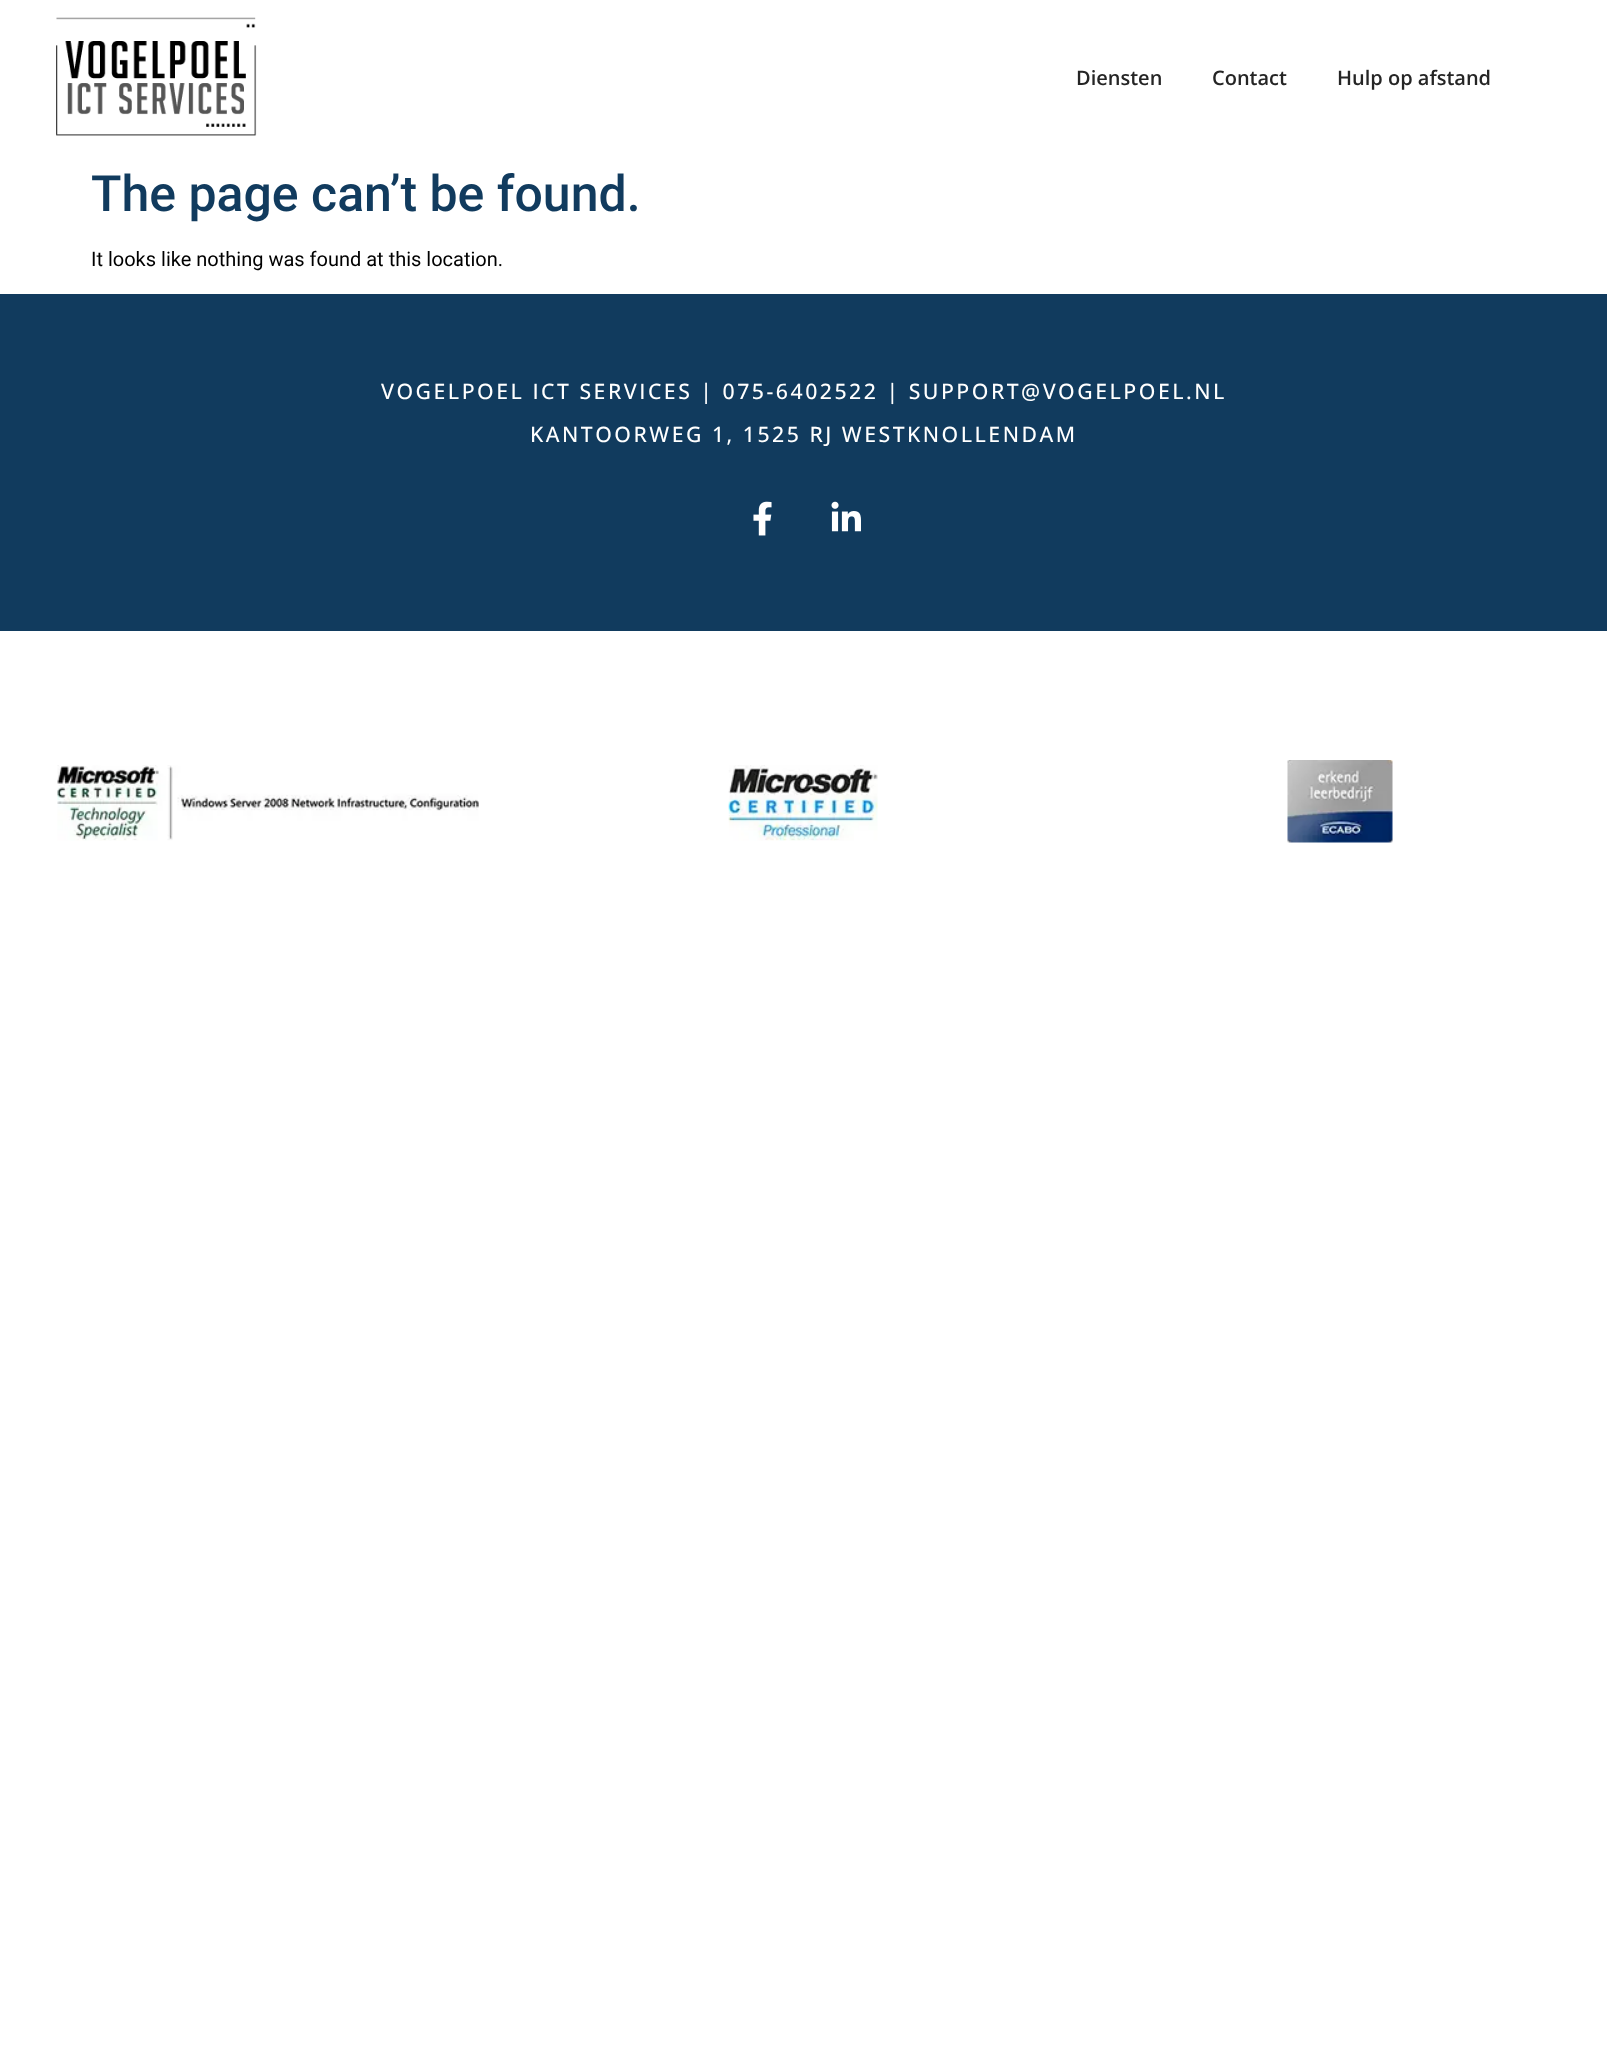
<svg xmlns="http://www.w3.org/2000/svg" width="1607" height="2055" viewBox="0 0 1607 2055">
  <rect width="100%" height="100%" fill="#ffffff"/>
  <image x="56" y="17" width="201" height="119" href="img1.png"/>
  <text x="1076" y="85" font-family="Open Sans" font-size="20" font-weight="600" fill="#252525">Diensten</text>
  <text x="1212" y="85" font-family="Open Sans" font-size="20" font-weight="600" fill="#252525">Contact</text>
  <text x="1337" y="85" font-family="Open Sans" font-size="20" font-weight="600" fill="#252525">Hulp op afstand</text>
  <text x="91" y="211" font-family="Roboto" font-size="50" font-weight="500" fill="#113b5e">The page can’t be found.</text>
  <text x="91" y="266" font-family="Roboto" font-size="20" fill="#000000">It looks like nothing was found at this location.</text>
  <rect x="0" y="294" width="1607" height="337" fill="#113b5e"/>
  <text x="381" y="399" font-family="Open Sans" font-size="21.25" font-weight="500" letter-spacing="2.5" fill="#ffffff">VOGELPOEL ICT SERVICES | 075-6402522 | SUPPORT@VOGELPOEL.NL</text>
  <text x="530" y="442" font-family="Open Sans" font-size="21.25" font-weight="500" letter-spacing="2.5" fill="#ffffff">KANTOORWEG 1, 1525 RJ WESTKNOLLENDAM</text>
  <image x="753" y="501" width="19" height="35" href="img2.png"/>
  <image x="831" y="501" width="30" height="31" href="img3.png"/>
  <image x="57" y="765" width="422" height="76" href="img4.png"/>
  <image x="728" y="765" width="150" height="76" href="img5.png"/>
  <image x="1287" y="760" width="106" height="83" href="img6.png"/>
</svg>
